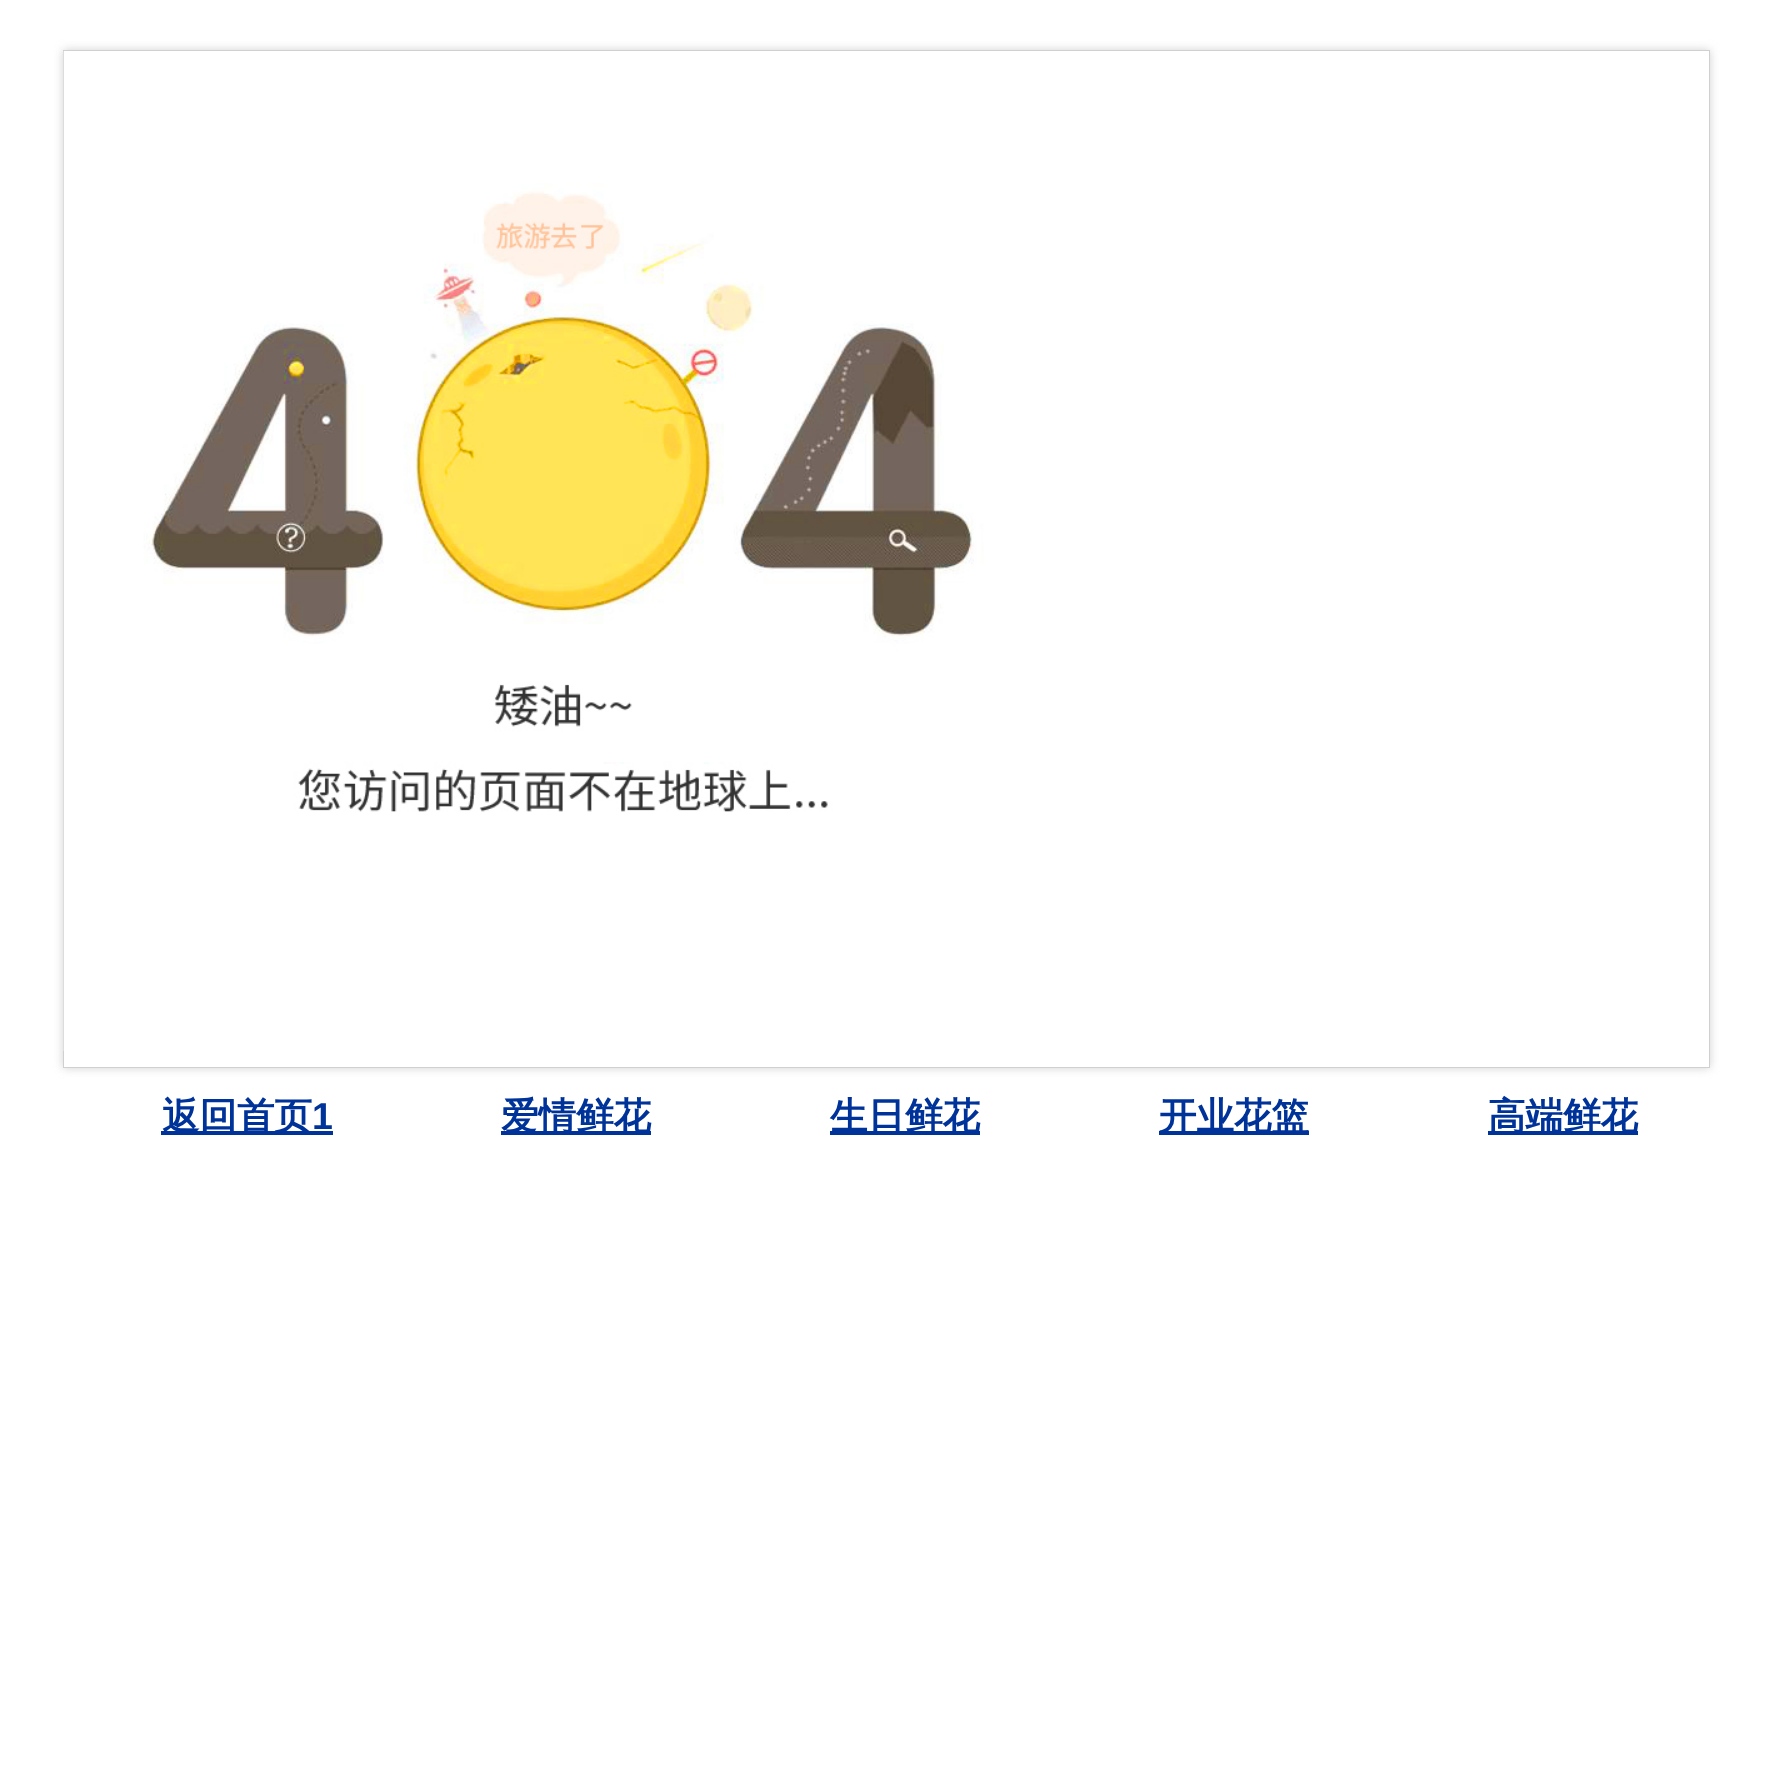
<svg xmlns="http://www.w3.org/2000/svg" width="1772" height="1772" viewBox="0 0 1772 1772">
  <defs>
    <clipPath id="clip1"><path d="M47 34H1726V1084H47ZM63 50H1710V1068H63Z" clip-rule="evenodd"/></clipPath>
    <filter id="blur1" x="-50%" y="-200%" width="200%" height="500%"><feGaussianBlur stdDeviation="5"/></filter>
  </defs>
  <rect width="100%" height="100%" fill="#ffffff"/>
  <g clip-path="url(#clip1)">
    <rect x="63" y="50" width="1647" height="1018" fill="#d0d0d0" filter="url(#blur1)"/>
  </g>
  <rect x="63.5" y="50.5" width="1646" height="1017" fill="none" stroke="#d0d0d0"/>
  <image x="63" y="51" width="921" height="1000" href="img1.png"/>
  <rect x="161" y="1131" width="172" height="4" fill="#003399"/>
  <text x="162" y="1129" font-family="WenQuanYi Zen Hei" font-size="37.5" font-weight="bold" fill="#003399">返回首页</text>
  <text x="312" y="1129" font-family="Liberation Sans" font-size="37.5" font-weight="bold" fill="#003399">1</text>
  <rect x="501" y="1131" width="150" height="4" fill="#003399"/>
  <text x="501" y="1129" font-family="WenQuanYi Zen Hei" font-size="37.5" font-weight="bold" fill="#003399">爱情鲜花</text>
  <rect x="830" y="1131" width="150" height="4" fill="#003399"/>
  <text x="830" y="1129" font-family="WenQuanYi Zen Hei" font-size="37.5" font-weight="bold" fill="#003399">生日鲜花</text>
  <rect x="1159" y="1131" width="150" height="4" fill="#003399"/>
  <text x="1159" y="1129" font-family="WenQuanYi Zen Hei" font-size="37.5" font-weight="bold" fill="#003399">开业花篮</text>
  <rect x="1488" y="1131" width="150" height="4" fill="#003399"/>
  <text x="1488" y="1129" font-family="WenQuanYi Zen Hei" font-size="37.5" font-weight="bold" fill="#003399">高端鲜花</text>
</svg>
